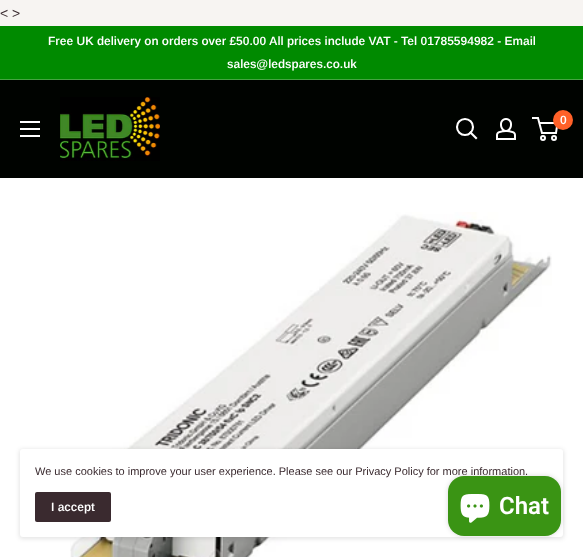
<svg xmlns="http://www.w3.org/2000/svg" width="583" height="557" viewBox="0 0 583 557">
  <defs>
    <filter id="blur1" x="-50%" y="-200%" width="200%" height="500%"><feGaussianBlur stdDeviation="2"/></filter>
    <filter id="blur2" x="-50%" y="-200%" width="200%" height="500%"><feGaussianBlur stdDeviation="2.5"/></filter>
  </defs>
  <rect width="100%" height="100%" fill="#f7f4f2"/>
  <text x="0" y="18" font-family="Arimo" font-size="14" fill="#3a2a2f">&lt; &gt;</text>
  <rect x="0" y="26" width="583" height="53" fill="#008a00"/>
  <rect x="0" y="79" width="583" height="1" fill="#46a442"/>
  <text x="48" y="45" font-family="Arimo" font-size="12" font-weight="600" fill="#ffffff">Free UK delivery on orders over £50.00 All prices include VAT - Tel 01785594982 - Email</text>
  <text x="227" y="68" font-family="Arimo" font-size="12" font-weight="600" fill="#ffffff">sales@ledspares.co.uk</text>
  <rect x="0" y="80" width="583" height="98" fill="#000300"/>
  <image x="60" y="97" width="100" height="64" href="img1.png"/>
  <path d="M476 138L470.5 132.5" fill="none" stroke="#ffffff" stroke-width="2.1" stroke-linecap="square"/>
  <circle cx="465" cy="127" r="8" fill="none" stroke="#ffffff" stroke-width="2.1"/>
  <image x="496" y="118" width="20" height="22" href="img2.png"/>
  <circle cx="543" cy="138" r="2" fill="none" stroke="#ffffff" stroke-width="2"/>
  <circle cx="554" cy="138" r="2" fill="none" stroke="#ffffff" stroke-width="2"/>
  <path d="M539.5 123H557.5L556 133H542L538 118H532" fill="none" stroke="#ffffff" stroke-width="2"/>
  <circle cx="563" cy="120" r="10" fill="#ff6128"/>
  <text x="560" y="124" font-family="Arimo" font-size="12" font-weight="600" fill="#ffffff">0</text>
  <image x="20" y="121" width="20" height="16" href="img3.png"/>
  <rect x="0" y="178" width="583" height="379" fill="#ffffff"/>
  <image x="70" y="212" width="482" height="345" href="img4.png"/>
  <rect x="19" y="449" width="545" height="90" rx="4" fill="#000000" fill-opacity="0.1" filter="url(#blur1)"/>
  <rect x="20" y="449" width="543" height="88" rx="3" fill="#ffffff"/>
  <text x="35" y="475" font-family="Arimo" font-size="11" fill="#3a2a2f">We use cookies to improve your user experience. Please see our Privacy Policy for more information.</text>
  <rect x="35" y="492" width="76" height="30" rx="2" fill="#3a2a2f"/>
  <text x="51" y="511" font-family="Arimo" font-size="12" font-weight="600" fill="#ffffff">I accept</text>
  <rect x="448" y="476" width="113" height="60" rx="16" fill="#000000" fill-opacity="0.15" filter="url(#blur2)"/>
  <rect x="448" y="476" width="113" height="60" rx="16" fill="#3a9414"/>
  <image x="460" y="494" width="30" height="29" href="img5.png"/>
  <text x="499" y="514" font-family="Roboto" font-size="24" font-weight="600" fill="#ffffff">Chat</text>
</svg>
